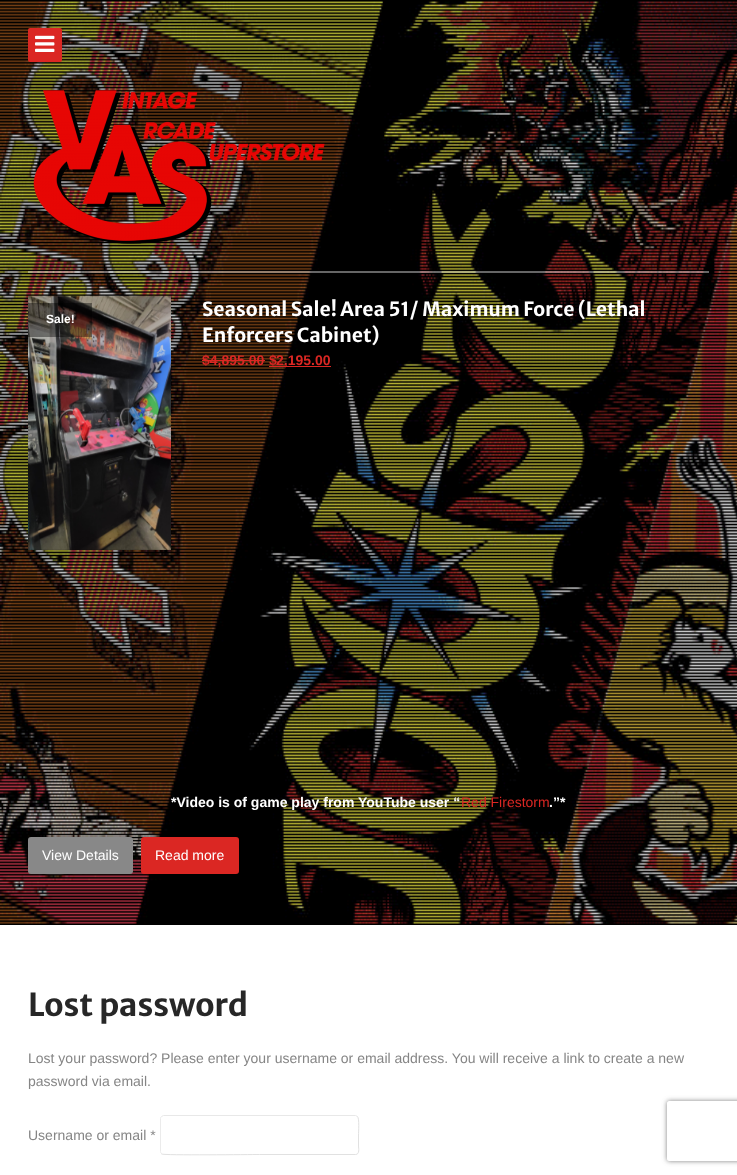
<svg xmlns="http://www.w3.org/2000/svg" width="737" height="1175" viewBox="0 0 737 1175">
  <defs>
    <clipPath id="clip1"><path d="M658 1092H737V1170H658ZM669 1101H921C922 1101 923 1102 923 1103V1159C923 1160 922 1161 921 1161H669C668 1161 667 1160 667 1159V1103C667 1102 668 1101 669 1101Z" clip-rule="evenodd"/></clipPath>
    <filter id="blur1" x="-50%" y="-200%" width="200%" height="500%"><feGaussianBlur stdDeviation="2.5"/></filter>
  </defs>
  <rect width="100%" height="100%" fill="#ffffff"/>
  <image x="0" y="0" width="737" height="925" href="img1.png"/>
  <rect x="28" y="28" width="34" height="34" rx="2" fill="#db2723"/>
  <image x="35" y="35" width="20" height="17" href="img2.png"/>
  <image x="33" y="90" width="292" height="154" href="img3.png"/>
  <rect x="28" y="271" width="681" height="2" fill="#ffffff" fill-opacity="0.4"/>
  <text x="202" y="316" font-family="Merriweather Sans" font-size="19.4" font-weight="bold" fill="#ffffff">Seasonal Sale! Area 51/ Maximum Force (Lethal</text>
  <text x="202" y="342" font-family="Merriweather Sans" font-size="19.4" font-weight="bold" fill="#ffffff">Enforcers Cabinet)</text>
  <text x="202" y="365" font-family="Liberation Sans" font-size="14" font-weight="bold" fill="#db2723">$4,895.00</text>
  <rect x="202" y="360" width="63" height="1" fill="#db2723"/>
  <rect x="269" y="366" width="7" height="1" fill="#db2723"/>
  <text x="269" y="365" font-family="Liberation Sans" font-size="14" font-weight="bold" fill="#db2723">$</text>
  <rect x="276" y="366" width="55" height="1" fill="#db2723"/>
  <text x="276" y="365" font-family="Liberation Sans" font-size="14" font-weight="bold" fill="#db2723">2,195.00</text>
  <text x="171" y="807" font-family="Liberation Sans" font-size="14" font-weight="bold" fill="#ffffff">*Video is of game play from YouTube user “</text>
  <text x="461" y="807" font-family="Liberation Sans" font-size="14" fill="#db2723">Red Firestorm</text>
  <text x="549" y="807" font-family="Liberation Sans" font-size="14" font-weight="bold" fill="#ffffff">.”*</text>
  <rect x="28" y="837" width="105" height="37" rx="3" fill="#888888"/>
  <text x="42" y="860" font-family="Liberation Sans" font-size="14" fill="#ffffff">View Details</text>
  <rect x="141" y="837" width="98" height="37" rx="3" fill="#db2723"/>
  <text x="155" y="860" font-family="Liberation Sans" font-size="14" fill="#ffffff">Read more</text>
  <image x="28" y="295" width="143" height="255" href="img4.png"/>
  <rect x="28" y="303" width="64" height="34" fill="#000000" fill-opacity="0.4"/>
  <text x="46" y="323" font-family="Liberation Sans" font-size="12" font-weight="bold" fill="#ffffff">Sale!</text>
  <text x="28" y="1016" font-family="Merriweather Sans" font-size="31.5" font-weight="bold" fill="#272727">Lost password</text>
  <text x="28" y="1063" font-family="Liberation Sans" font-size="14" fill="#858585">Lost your password? Please enter your username or email address. You will receive a link to create a new</text>
  <text x="28" y="1086" font-family="Liberation Sans" font-size="14" fill="#858585">password via email.</text>
  <text x="28" y="1140" font-family="Liberation Sans" font-size="14" fill="#858585">Username or email *</text>
  <path d="M161.5 1116.5L163.5 1115.5H355.5L357.5 1116.5" fill="none" stroke="#e8e8e8"/>
  <path d="M357.5 1116.5C359.5 1118.5 358.5 1132 358.5 1135V1146C358.5 1148 360 1154.5 355.5 1154.5H259.5C250.5 1154.5 164 1155.5 161.5 1154V1153.5" fill="none" stroke="#e1e1e1"/>
  <path d="M161.5 1153.5C161 1153 160.5 1152.5 160.5 1151.5V1118.5C160.5 1117.5 161 1117 161.5 1116.5" fill="none" stroke="#ebebeb"/>
  <g clip-path="url(#clip1)">
    <rect x="667" y="1101" width="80" height="60" rx="2" fill="#808080" filter="url(#blur1)"/>
  </g>
</svg>
